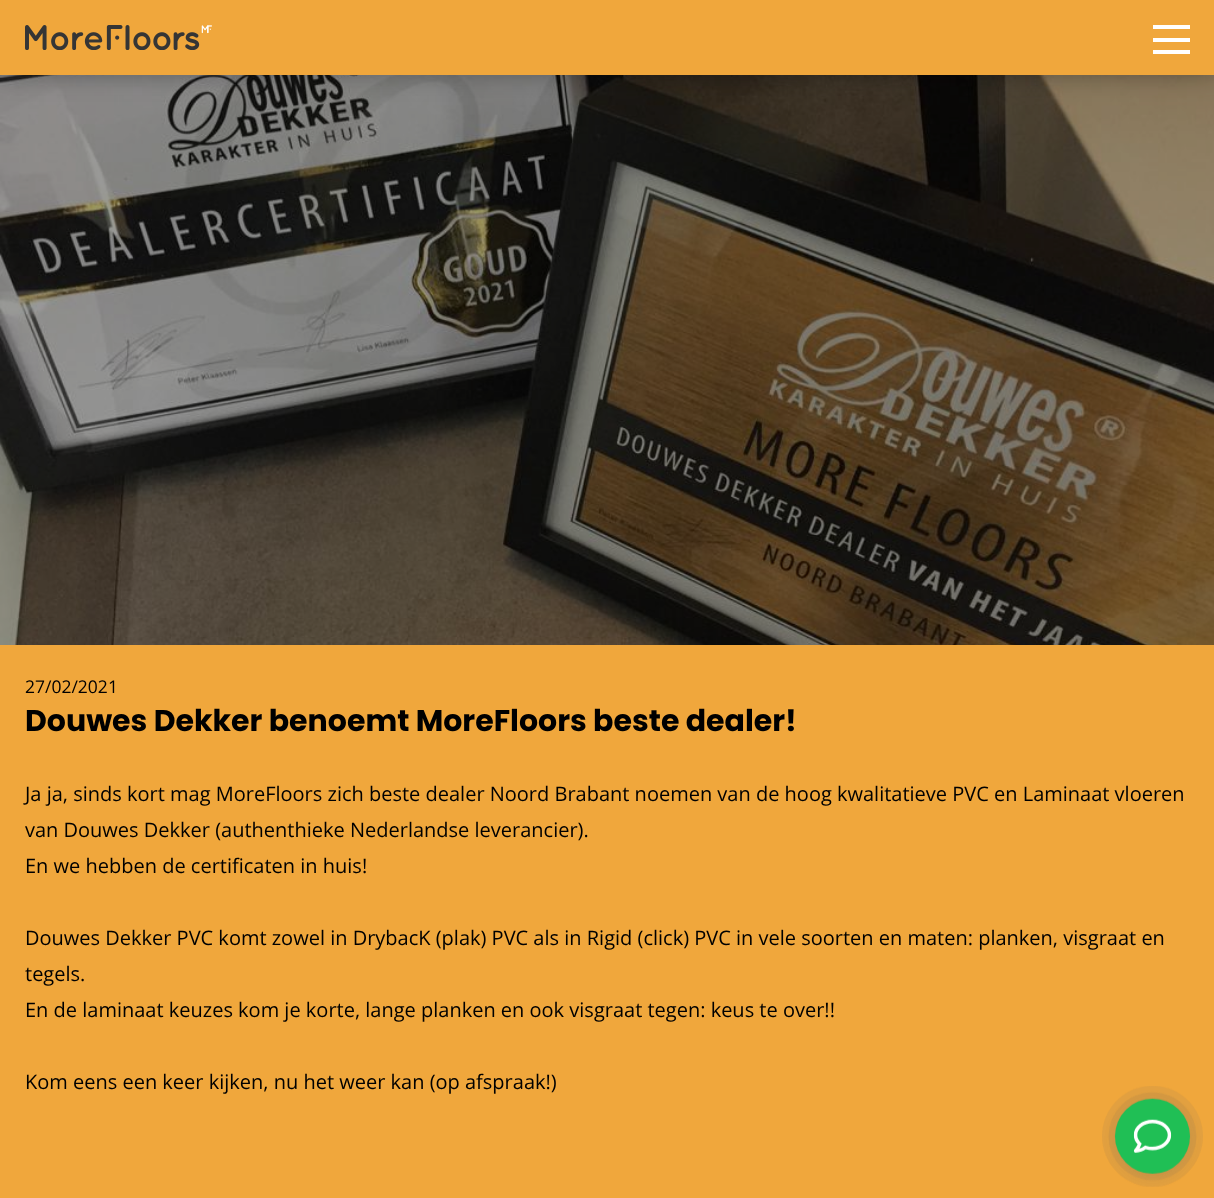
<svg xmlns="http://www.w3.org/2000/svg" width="1214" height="1198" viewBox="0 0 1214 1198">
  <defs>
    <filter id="blur1" x="-50%" y="-200%" width="200%" height="500%"><feGaussianBlur stdDeviation="12.5"/></filter>
  </defs>
  <rect width="100%" height="100%" fill="#f0a73c"/>
  <image x="0" y="75" width="1214" height="570" href="img2.png"/>
  <rect x="0" y="0" width="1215" height="75" fill="#000000" fill-opacity="0.3" filter="url(#blur1)"/>
  <rect x="0" y="0" width="1214" height="75" fill="#f0a73c"/>
  <image x="25" y="25" width="187" height="25" href="img1.png"/>
  <rect x="1153" y="38" width="37" height="4" fill="#ffffff"/>
  <rect x="1153" y="25" width="37" height="4" fill="#ffffff"/>
  <rect x="1153" y="50" width="37" height="4" fill="#ffffff"/>
  <text x="25" y="693" font-family="Open Sans" font-size="17.5" fill="#000000">27/02/2021</text>
  <text x="25" y="731" font-family="Poppins" font-size="30" font-weight="bold" fill="#000000">Douwes Dekker benoemt MoreFloors beste dealer!</text>
  <text x="25" y="801" font-family="Open Sans" font-size="20" fill="#000000">Ja ja, sinds kort mag MoreFloors zich beste dealer Noord Brabant noemen van de hoog kwalitatieve PVC en Laminaat vloeren</text>
  <text x="25" y="837" font-family="Open Sans" font-size="20" fill="#000000">van Douwes Dekker (authenthieke Nederlandse leverancier).</text>
  <text x="25" y="873" font-family="Open Sans" font-size="20" fill="#000000">En we hebben de certificaten in huis!</text>
  <text x="25" y="945" font-family="Open Sans" font-size="20" fill="#000000">Douwes Dekker PVC komt zowel in DrybacK (plak) PVC als in Rigid (click) PVC in vele soorten en maten: planken, visgraat en</text>
  <text x="25" y="981" font-family="Open Sans" font-size="20" fill="#000000">tegels.</text>
  <text x="25" y="1017" font-family="Open Sans" font-size="20" fill="#000000">En de laminaat keuzes kom je korte, lange planken en ook visgraat tegen: keus te over!!</text>
  <text x="25" y="1089" font-family="Open Sans" font-size="20" fill="#000000">Kom eens een keer kijken, nu het weer kan (op afspraak!)</text>
  <image x="1102" y="1086" width="101" height="101" href="img3.png"/>
</svg>
